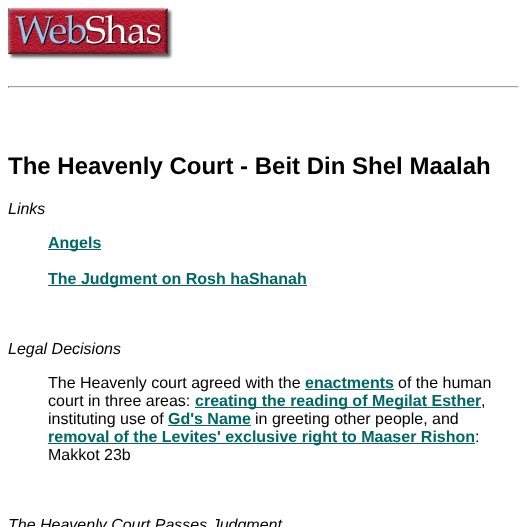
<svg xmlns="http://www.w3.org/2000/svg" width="527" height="527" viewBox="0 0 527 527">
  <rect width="100%" height="100%" fill="#ffffff"/>
  <image x="8" y="8" width="165" height="52" href="img1.png"/>
  <rect x="8" y="86" width="511" height="1" fill="#9f9f9f"/>
  <rect x="518" y="86" width="1" height="2" fill="#eeeeee"/>
  <rect x="8" y="87" width="511" height="1" fill="#eeeeee"/>
  <rect x="8" y="86" width="1" height="2" fill="#9f9f9f"/>
  <text x="8" y="174" font-family="Liberation Sans" font-size="24" font-weight="bold" fill="#000000">The Heavenly Court - Beit Din Shel Maalah</text>
  <text x="8" y="214" font-family="Liberation Sans" font-size="16" font-style="italic" fill="#000000">Links</text>
  <rect x="48" y="249" width="53" height="1" fill="#006666"/>
  <text x="48" y="248" font-family="Liberation Sans" font-size="16" font-weight="bold" fill="#006666">Angels</text>
  <rect x="48" y="285" width="259" height="1" fill="#006666"/>
  <text x="48" y="284" font-family="Liberation Sans" font-size="16" font-weight="bold" fill="#006666">The Judgment on Rosh haShanah</text>
  <text x="8" y="354" font-family="Liberation Sans" font-size="16" font-style="italic" fill="#000000">Legal Decisions</text>
  <text x="48" y="388" font-family="Liberation Sans" font-size="16" fill="#000000">The Heavenly court agreed with the</text>
  <text x="305" y="388" font-family="Liberation Sans" font-size="16" font-weight="bold" fill="#006666">enactments</text>
  <rect x="305" y="389" width="89" height="1" fill="#006666"/>
  <text x="398" y="388" font-family="Liberation Sans" font-size="16" fill="#000000">of the human</text>
  <text x="48" y="406" font-family="Liberation Sans" font-size="16" fill="#000000">court in three areas:</text>
  <rect x="195" y="407" width="286" height="1" fill="#006666"/>
  <text x="195" y="406" font-family="Liberation Sans" font-size="16" font-weight="bold" fill="#006666">creating the reading of Megilat Esther</text>
  <text x="481" y="406" font-family="Liberation Sans" font-size="16" fill="#000000">,</text>
  <text x="48" y="424" font-family="Liberation Sans" font-size="16" fill="#000000">instituting use of</text>
  <text x="168" y="424" font-family="Liberation Sans" font-size="16" font-weight="bold" fill="#006666">Gd's Name</text>
  <rect x="168" y="425" width="83" height="1" fill="#006666"/>
  <text x="255" y="424" font-family="Liberation Sans" font-size="16" fill="#000000">in greeting other people, and</text>
  <rect x="48" y="443" width="427" height="1" fill="#006666"/>
  <text x="48" y="442" font-family="Liberation Sans" font-size="16" font-weight="bold" fill="#006666">removal of the Levites' exclusive right to Maaser Rishon</text>
  <text x="475" y="442" font-family="Liberation Sans" font-size="16" fill="#000000">:</text>
  <text x="48" y="460" font-family="Liberation Sans" font-size="16" fill="#000000">Makkot 23b</text>
  <text x="8" y="530" font-family="Liberation Sans" font-size="16" font-style="italic" fill="#000000">The Heavenly Court Passes Judgment</text>
</svg>
